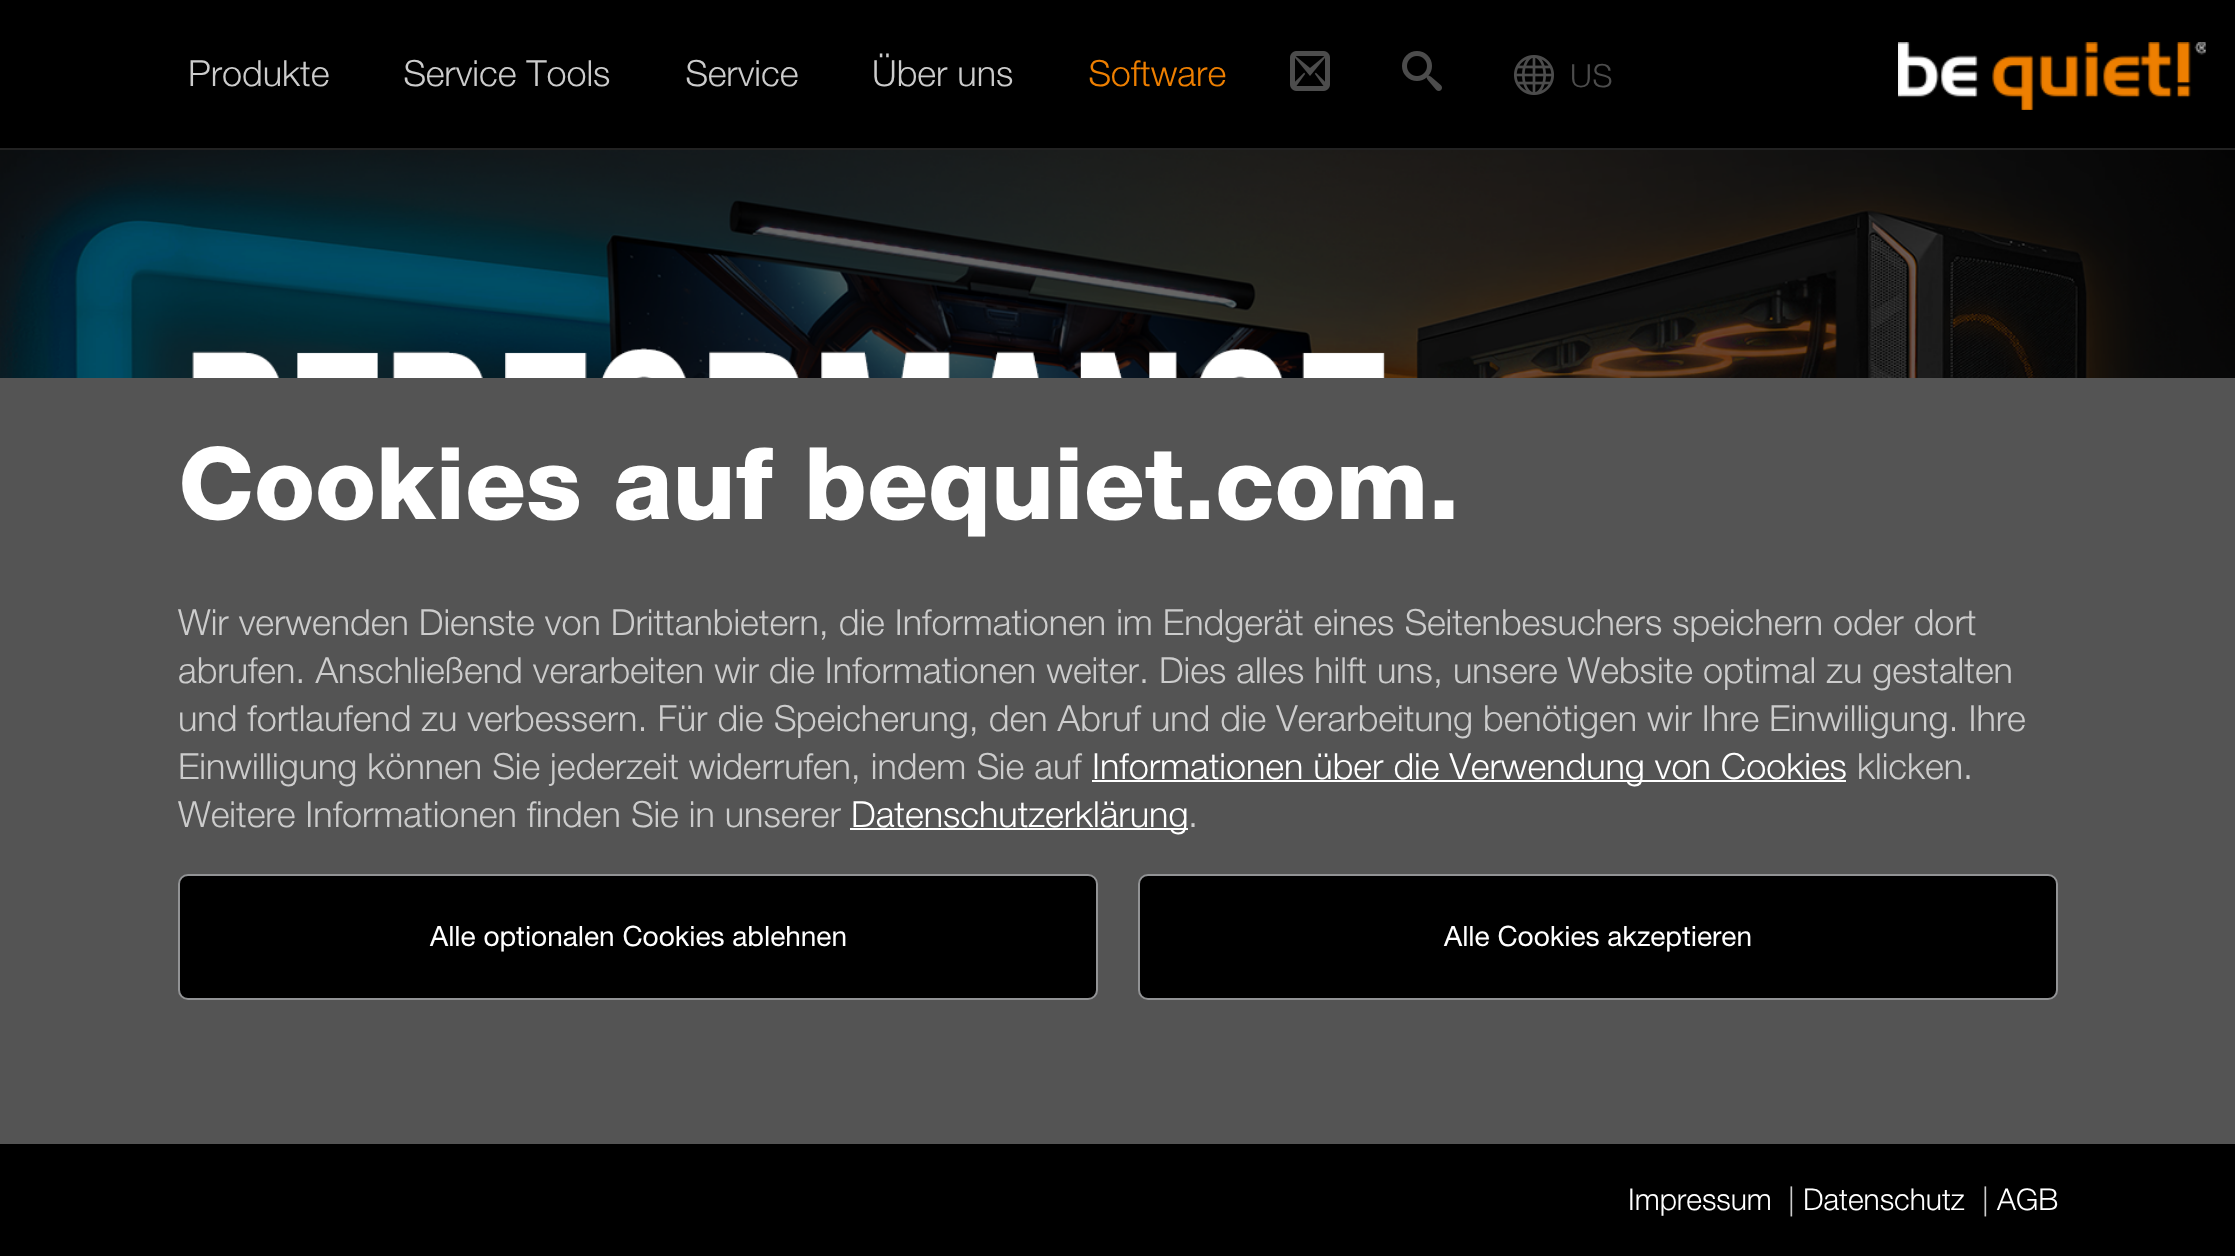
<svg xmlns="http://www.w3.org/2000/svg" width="2235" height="1256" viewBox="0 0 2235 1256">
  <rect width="100%" height="100%" fill="#000000"/>
  <rect x="0" y="148" width="2235" height="2" fill="#222222"/>
  <image x="1898" y="42" width="308" height="68" href="img1.png"/>
  <text x="188" y="86" font-family="'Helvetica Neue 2'" font-size="36" fill="#cccccc">Produkte</text>
  <text x="403" y="86" font-family="'Helvetica Neue 2'" font-size="36" fill="#cccccc">Service Tools</text>
  <text x="685" y="86" font-family="'Helvetica Neue 2'" font-size="36" fill="#cccccc">Service</text>
  <text x="872" y="86" font-family="'Helvetica Neue 2'" font-size="36" fill="#cccccc">Über uns</text>
  <text x="1088" y="86" font-family="'Helvetica Neue 2'" font-size="36" fill="#ee7f00">Software</text>
  <image x="1290" y="51" width="40" height="40" href="img2.png"/>
  <image x="1402" y="51" width="40" height="40" href="img3.png"/>
  <image x="1514" y="55" width="40" height="40" href="img4.png"/>
  <text x="1570" y="87" font-family="'Helvetica Neue 2'" font-size="32" fill="#4c4c4c">US</text>
  <image x="0" y="150" width="2235" height="228" href="img5.png"/>
  <rect x="0" y="378" width="2235" height="766" fill="#545454"/>
  <text x="178" y="519" font-family="Helvetica Neue" font-size="100" fill="#ffffff">Cookies auf bequiet.com.</text>
  <text x="178" y="635" font-family="'Helvetica Neue 2'" font-size="36" fill="#cccccc">Wir verwenden Dienste von Drittanbietern, die Informationen im Endgerät eines Seitenbesuchers speichern oder dort</text>
  <text x="178" y="683" font-family="'Helvetica Neue 2'" font-size="36" fill="#cccccc">abrufen. Anschließend verarbeiten wir die Informationen weiter. Dies alles hilft uns, unsere Website optimal zu gestalten</text>
  <text x="178" y="731" font-family="'Helvetica Neue 2'" font-size="36" fill="#cccccc">und fortlaufend zu verbessern. Für die Speicherung, den Abruf und die Verarbeitung benötigen wir Ihre Einwilligung. Ihre</text>
  <text x="178" y="779" font-family="'Helvetica Neue 2'" font-size="36" fill="#cccccc">Einwilligung können Sie jederzeit widerrufen, indem Sie auf</text>
  <rect x="1092" y="780" width="754" height="2" fill="#ffffff"/>
  <text x="1092" y="779" font-family="'Helvetica Neue 2'" font-size="36" fill="#ffffff">Informationen über die Verwendung von Cookies</text>
  <text x="1857" y="779" font-family="'Helvetica Neue 2'" font-size="36" fill="#cccccc">klicken.</text>
  <text x="178" y="827" font-family="'Helvetica Neue 2'" font-size="36" fill="#cccccc">Weitere Informationen finden Sie in unserer</text>
  <rect x="850" y="828" width="338" height="2" fill="#ffffff"/>
  <text x="851" y="827" font-family="'Helvetica Neue 2'" font-size="36" fill="#ffffff">Datenschutzerklärung</text>
  <text x="1188" y="827" font-family="'Helvetica Neue 2'" font-size="36" fill="#cccccc">.</text>
  <rect x="179" y="875" width="918" height="124" rx="9" fill="#000000" stroke="#929395" stroke-width="2"/>
  <text x="430" y="946" font-family="'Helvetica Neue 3'" font-size="28" fill="#ffffff">Alle optionalen Cookies ablehnen</text>
  <rect x="1139" y="875" width="918" height="124" rx="9" fill="#000000" stroke="#929395" stroke-width="2"/>
  <text x="1444" y="946" font-family="'Helvetica Neue 3'" font-size="28" fill="#ffffff">Alle Cookies akzeptieren</text>
  <text x="1628" y="1210" font-family="'Helvetica Neue 2'" font-size="30" fill="#ffffff">Impressum</text>
  <text x="1788" y="1210" font-family="'Helvetica Neue 2'" font-size="30" fill="#cccccc">|</text>
  <text x="1803" y="1210" font-family="'Helvetica Neue 2'" font-size="30" fill="#ffffff">Datenschutz</text>
  <text x="1982" y="1210" font-family="'Helvetica Neue 2'" font-size="30" fill="#cccccc">|</text>
  <text x="1997" y="1210" font-family="'Helvetica Neue 2'" font-size="30" fill="#ffffff">AGB</text>
</svg>
